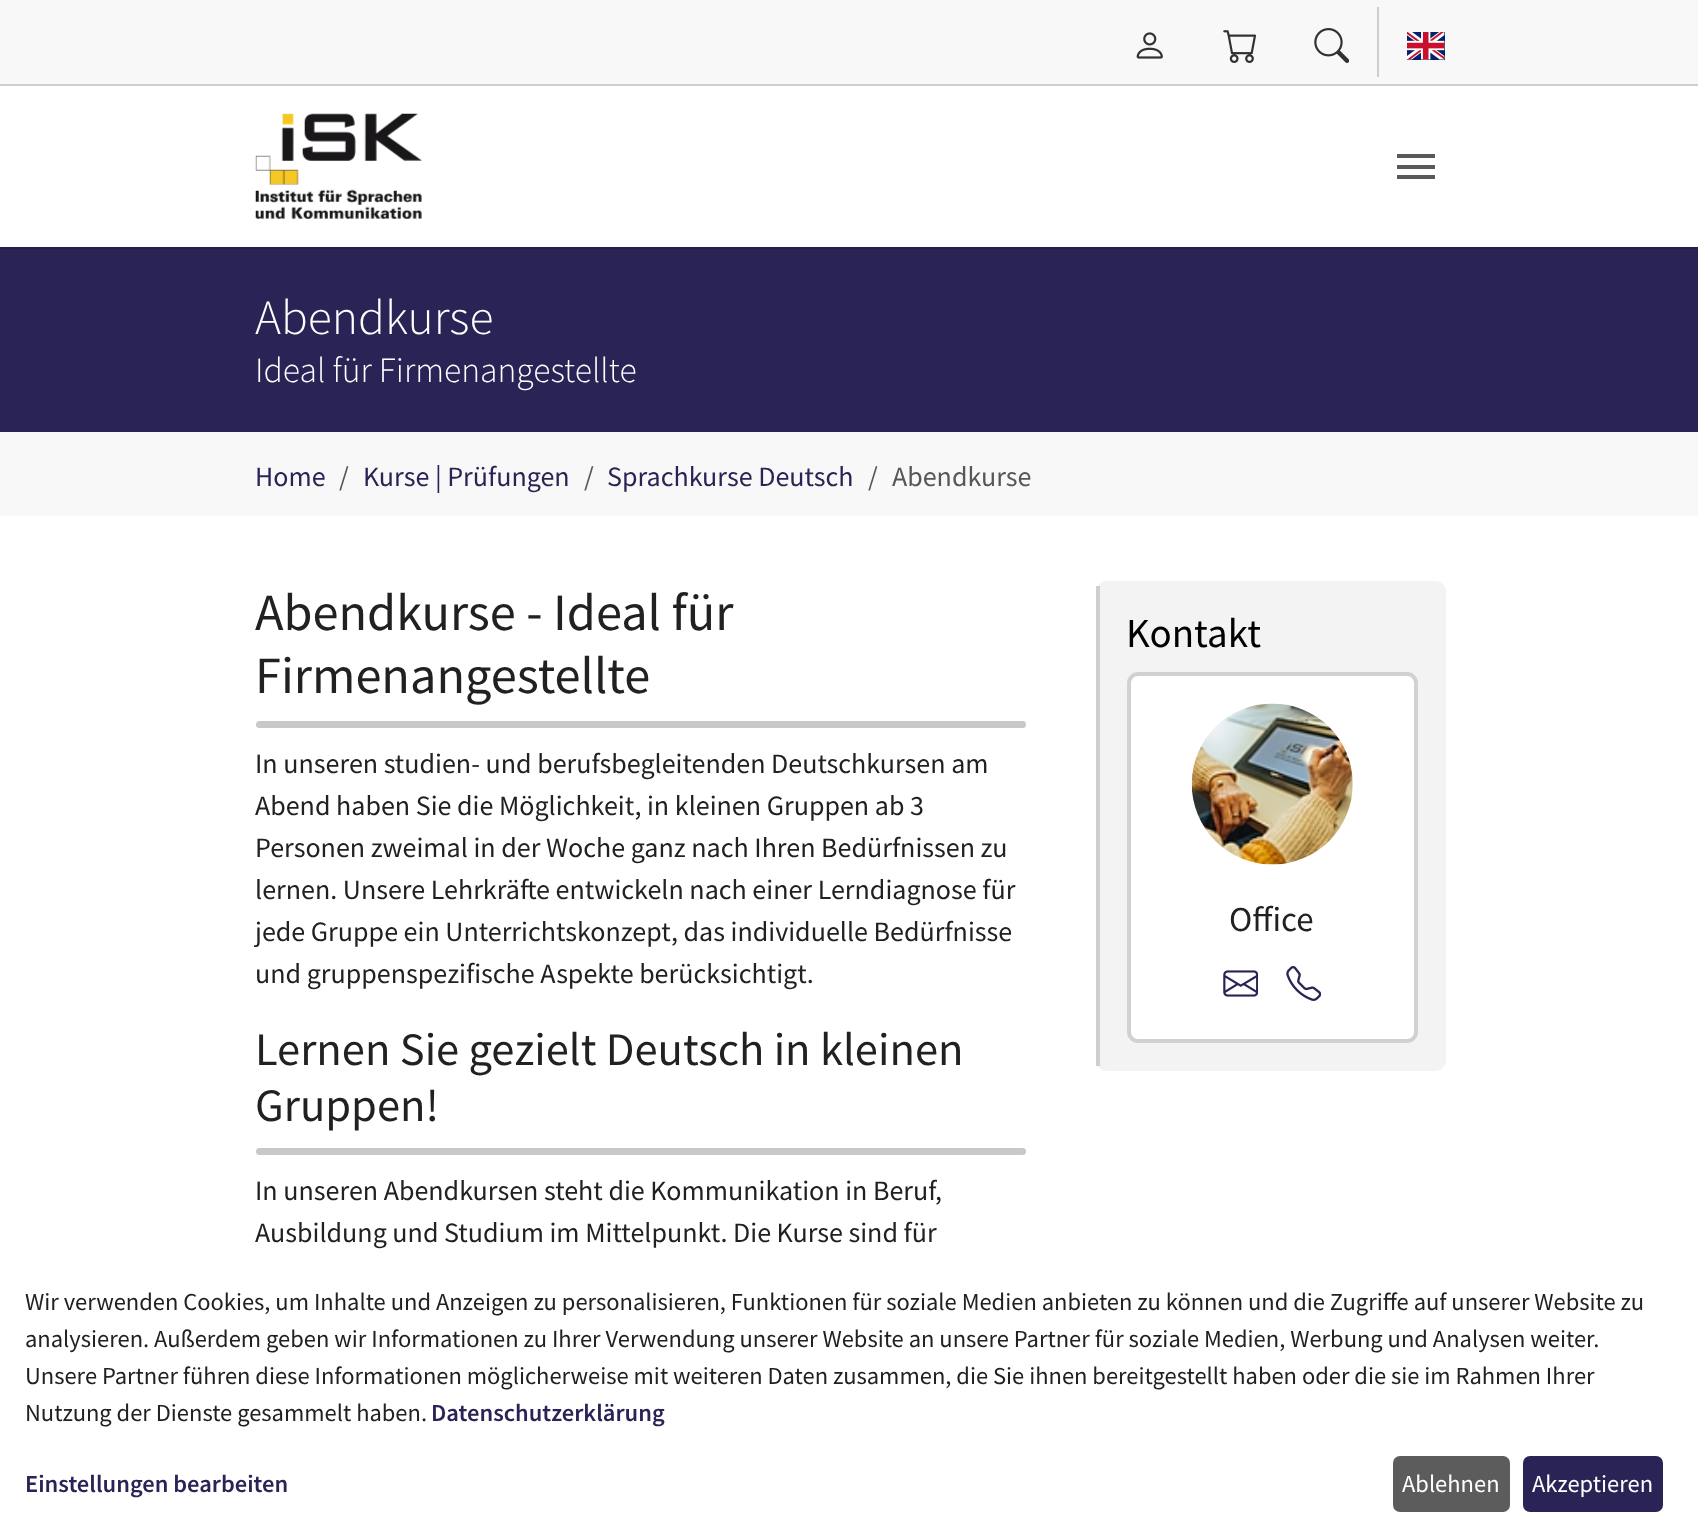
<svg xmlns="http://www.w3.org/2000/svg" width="1698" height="1536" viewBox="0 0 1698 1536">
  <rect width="100%" height="100%" fill="#ffffff"/>
  <rect x="0" y="0" width="1698" height="84" fill="#f8f8f8"/>
  <rect x="0" y="84" width="1698" height="2" fill="#cecece"/>
  <image x="1136" y="32" width="27" height="27" href="img1.png"/>
  <image x="1223" y="30" width="33" height="33" href="img2.png"/>
  <image x="1314" y="28" width="35" height="35" href="img3.png"/>
  <rect x="1377" y="7" width="2" height="70" fill="#cecece"/>
  <image x="1407" y="32" width="38" height="28" href="img4.png"/>
  <rect x="0" y="247" width="1698" height="2" fill="#231f48"/>
  <image x="255" y="113" width="167" height="106" href="img5.png"/>
  <rect x="1397" y="165" width="38" height="4" fill="#595959"/>
  <rect x="1397" y="154" width="38" height="4" fill="#595959"/>
  <rect x="1397" y="175" width="38" height="4" fill="#595959"/>
  <rect x="0" y="249" width="1698" height="183" fill="#292455"/>
  <text x="255" y="334" font-family="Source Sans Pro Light" font-size="49.5" font-weight="300" fill="#ffffff">Abendkurse</text>
  <text x="255" y="382" font-family="Source Sans Pro Light" font-size="35.5" font-weight="300" fill="#ffffff">Ideal für Firmenangestellte</text>
  <rect x="0" y="432" width="1698" height="84" fill="#f8f8f8"/>
  <text x="255" y="486" font-family="Source Sans Pro" font-size="28" fill="#292455">Home</text>
  <text x="339" y="486" font-family="Source Sans Pro" font-size="28" fill="#575757">/</text>
  <text x="363" y="486" font-family="Source Sans Pro" font-size="28" fill="#292455">Kurse | Prüfungen</text>
  <text x="584" y="486" font-family="Source Sans Pro" font-size="28" fill="#575757">/</text>
  <text x="607" y="486" font-family="Source Sans Pro" font-size="28" fill="#292455">Sprachkurse Deutsch</text>
  <text x="868" y="486" font-family="Source Sans Pro" font-size="28" fill="#575757">/</text>
  <text x="892" y="486" font-family="Source Sans Pro" font-size="28" fill="#575757">Abendkurse</text>
  <text x="255" y="630" font-family="Source Sans Pro" font-size="52.4" fill="#212121">Abendkurse - Ideal für</text>
  <text x="255" y="693" font-family="Source Sans Pro" font-size="52.4" fill="#212121">Firmenangestellte</text>
  <rect x="256" y="721" width="770" height="7" rx="3.5" fill="#c8c8c8"/>
  <text x="255" y="773" font-family="Source Sans Pro" font-size="28" fill="#212121">In unseren studien- und berufsbegleitenden Deutschkursen am</text>
  <text x="255" y="815" font-family="Source Sans Pro" font-size="28" fill="#212121">Abend haben Sie die Möglichkeit, in kleinen Gruppen ab 3</text>
  <text x="255" y="857" font-family="Source Sans Pro" font-size="28" fill="#212121">Personen zweimal in der Woche ganz nach Ihren Bedürfnissen zu</text>
  <text x="255" y="899" font-family="Source Sans Pro" font-size="28" fill="#212121">lernen. Unsere Lehrkräfte entwickeln nach einer Lerndiagnose für</text>
  <text x="255" y="941" font-family="Source Sans Pro" font-size="28" fill="#212121">jede Gruppe ein Unterrichtskonzept, das individuelle Bedürfnisse</text>
  <text x="255" y="983" font-family="Source Sans Pro" font-size="28" fill="#212121">und gruppenspezifische Aspekte berücksichtigt.</text>
  <text x="255" y="1065" font-family="Source Sans Pro" font-size="46.6" fill="#212121">Lernen Sie gezielt Deutsch in kleinen</text>
  <text x="255" y="1121" font-family="Source Sans Pro" font-size="46.6" fill="#212121">Gruppen!</text>
  <rect x="256" y="1148" width="770" height="7" rx="3.5" fill="#c8c8c8"/>
  <text x="255" y="1200" font-family="Source Sans Pro" font-size="28" fill="#212121">In unseren Abendkursen steht die Kommunikation in Beruf,</text>
  <text x="255" y="1242" font-family="Source Sans Pro" font-size="28" fill="#212121">Ausbildung und Studium im Mittelpunkt. Die Kurse sind für</text>
  <rect x="1096" y="581" width="350" height="490" rx="11" fill="#f3f3f3"/>
  <rect x="1096" y="586" width="4" height="480" fill="#cecece"/>
  <text x="1126" y="647" font-family="Source Sans Pro" font-size="41" fill="#000000">Kontakt</text>
  <rect x="1127" y="672" width="291" height="371" rx="11" fill="#ffffff"/>
  <rect x="1129" y="674" width="287" height="367" rx="9" fill="none" stroke="#000000" stroke-opacity="0.18" stroke-width="4"/>
  <image x="1191" y="703" width="162" height="162" href="img6.png"/>
  <text x="1229" y="931" font-family="Source Sans Pro" font-size="35" fill="#212121">Office</text>
  <image x="1223" y="970" width="35" height="27" href="img7.png"/>
  <image x="1286" y="966" width="35" height="35" href="img8.png"/>
  <text x="25" y="1310" font-family="Source Sans Pro" font-size="24.5" fill="#212121">Wir verwenden Cookies, um Inhalte und Anzeigen zu personalisieren, Funktionen für soziale Medien anbieten zu können und die Zugriffe auf unserer Website zu</text>
  <text x="25" y="1347" font-family="Source Sans Pro" font-size="24.5" fill="#212121">analysieren. Außerdem geben wir Informationen zu Ihrer Verwendung unserer Website an unsere Partner für soziale Medien, Werbung und Analysen weiter.</text>
  <text x="25" y="1384" font-family="Source Sans Pro" font-size="24.5" fill="#212121">Unsere Partner führen diese Informationen möglicherweise mit weiteren Daten zusammen, die Sie ihnen bereitgestellt haben oder die sie im Rahmen Ihrer</text>
  <text x="25" y="1421" font-family="Source Sans Pro" font-size="24.5" fill="#212121">Nutzung der Dienste gesammelt haben.</text>
  <text x="431" y="1421" font-family="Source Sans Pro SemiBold" font-size="24.5" font-weight="600" fill="#292455">Datenschutzerklärung</text>
  <text x="25" y="1492" font-family="Source Sans Pro SemiBold" font-size="24.5" font-weight="600" fill="#292455">Einstellungen bearbeiten</text>
  <rect x="1393" y="1456" width="117" height="56" rx="7" fill="#5c5c5c"/>
  <text x="1402" y="1492" font-family="Source Sans Pro" font-size="24.5" fill="#ffffff">Ablehnen</text>
  <rect x="1523" y="1456" width="140" height="56" rx="7" fill="#292455"/>
  <text x="1532" y="1492" font-family="Source Sans Pro" font-size="24.5" fill="#ffffff">Akzeptieren</text>
</svg>
